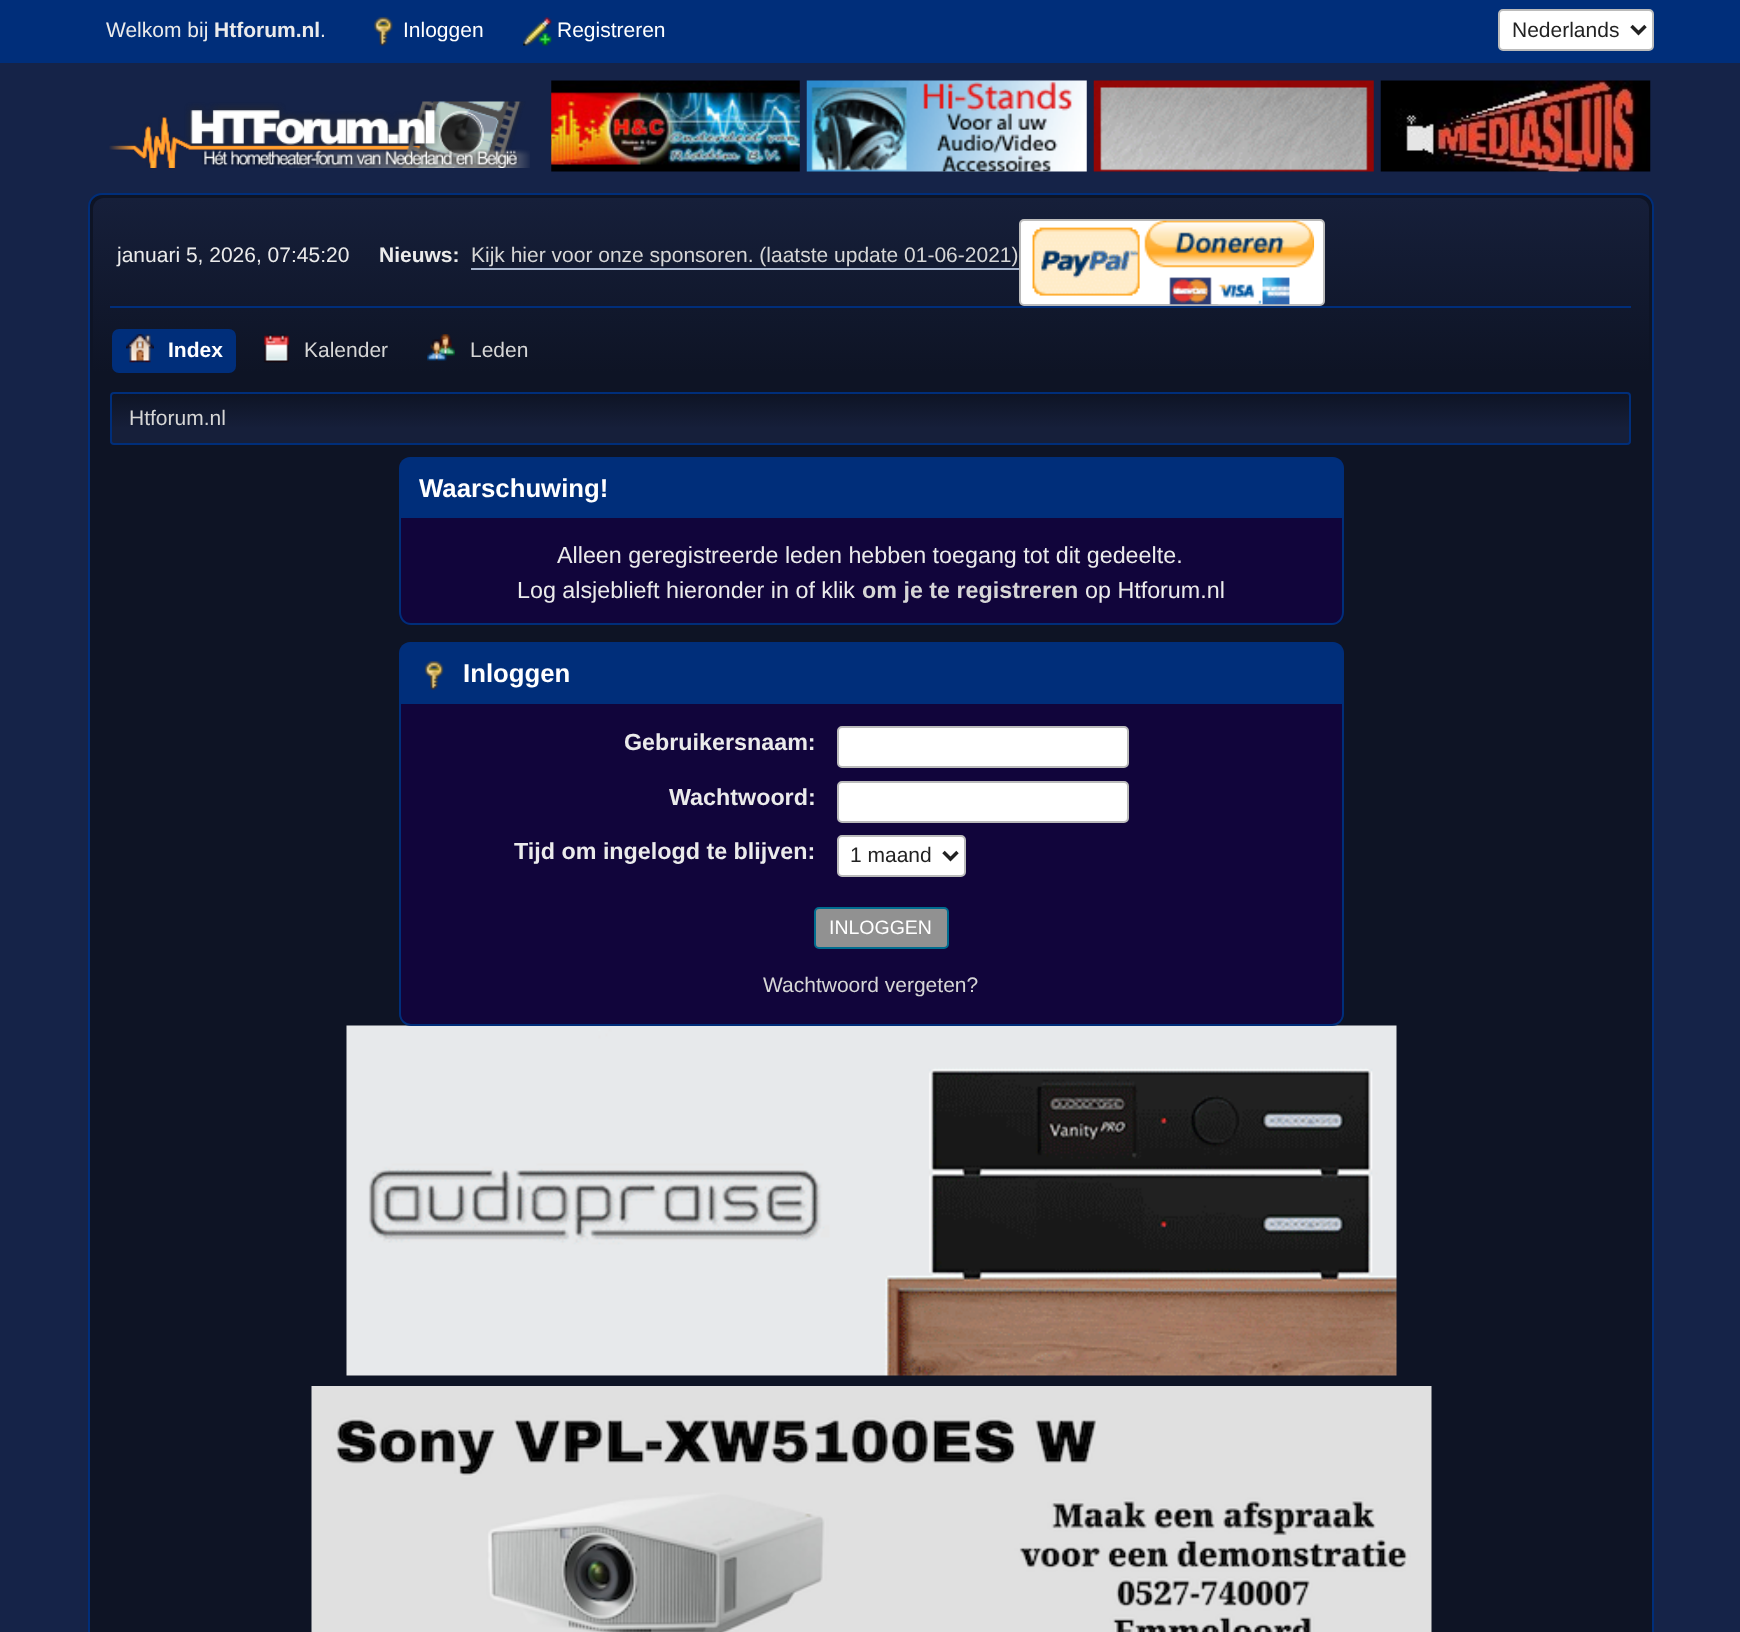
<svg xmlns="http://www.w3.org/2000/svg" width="1740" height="1632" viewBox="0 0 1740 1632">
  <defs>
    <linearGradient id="g1" gradientUnits="userSpaceOnUse" x1="871" y1="198" x2="871" y2="448"><stop offset="0" stop-color="#161f3a"/><stop offset="0.7" stop-color="#0e1425"/></linearGradient>
    <clipPath id="clip1"><rect x="110" y="392" width="1521" height="53" rx="4"/></clipPath>
    <linearGradient id="g2" gradientUnits="userSpaceOnUse" x1="871" y1="394" x2="871" y2="443"><stop offset="0" stop-color="#0e1425"/><stop offset="0.7" stop-color="#161f3a"/></linearGradient>
  </defs>
  <rect width="100%" height="100%" fill="#152348"/>
  <rect x="0" y="0" width="1740" height="63" fill="#002e7a"/>
  <text x="106" y="37" font-family="Liberation Sans" font-size="21" fill="#ebebeb">Welkom bij</text>
  <text x="214" y="37" font-family="Liberation Sans" font-size="21" font-weight="bold" fill="#ebebeb">Htforum.nl</text>
  <text x="320" y="37" font-family="Liberation Sans" font-size="21" fill="#ebebeb">.</text>
  <image x="374" y="17" width="19" height="29" href="img1.png"/>
  <text x="403" y="37" font-family="Liberation Sans" font-size="21" fill="#ffffff">Inloggen</text>
  <image x="523" y="17" width="29" height="29" href="img2.png"/>
  <text x="557" y="37" font-family="Liberation Sans" font-size="21" fill="#ffffff">Registreren</text>
  <rect x="1499" y="10" width="154" height="40" rx="4" fill="#ffffff" stroke="#bbbbbb" stroke-width="2"/>
  <path d="M1631.5 26L1638.5 33L1645.5 26" fill="none" stroke="#222222" stroke-width="3.5"/>
  <text x="1512" y="37" font-family="Liberation Sans" font-size="21" fill="#222222">Nederlands</text>
  <image x="109" y="101" width="421" height="67" href="img3.png"/>
  <image x="551" y="80" width="1100" height="92" href="img4.png"/>
  <rect x="89" y="194" width="1564" height="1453" rx="13" fill="#0e1425" stroke="#002e7a" stroke-width="2"/>
  <path d="M104 198H1638C1644 198 1649 203 1649 209V448H93V209C93 203 98 198 104 198Z" fill="url(#g1)"/>
  <rect x="110" y="306" width="1521" height="2" fill="#002e7a"/>
  <text x="117" y="262" font-family="Liberation Sans" font-size="21" fill="#ebebeb">januari 5, 2026, 07:45:20</text>
  <text x="379" y="262" font-family="Liberation Sans" font-size="21" font-weight="bold" fill="#ebebeb">Nieuws:</text>
  <text x="471" y="262" font-family="Liberation Sans" font-size="21" fill="#d6d6d6">Kijk hier voor onze sponsoren. (laatste update 01-06-2021)</text>
  <rect x="471" y="268" width="548" height="2" fill="#a8b6cf"/>
  <rect x="1020" y="220" width="304" height="85" rx="4" fill="#ffffff" stroke="#bbbbbb" stroke-width="2"/>
  <image x="1032" y="220" width="283" height="85" href="img5.png"/>
  <rect x="113" y="330" width="122" height="42" rx="6" fill="#002e7a" stroke="#002e7a" stroke-width="2"/>
  <image x="126" y="334" width="28" height="29" href="img6.png"/>
  <text x="168" y="357" font-family="Liberation Sans" font-size="21" font-weight="bold" fill="#ffffff">Index</text>
  <image x="263" y="334" width="27" height="29" href="img7.png"/>
  <text x="304" y="357" font-family="Liberation Sans" font-size="21" fill="#d6d6d6">Kalender</text>
  <image x="427" y="334" width="28" height="27" href="img8.png"/>
  <text x="470" y="357" font-family="Liberation Sans" font-size="21" fill="#d6d6d6">Leden</text>
  <g clip-path="url(#clip1)">
    <rect x="110" y="394" width="1521" height="49" fill="url(#g2)"/>
  </g>
  <rect x="111" y="393" width="1519" height="51" rx="3" fill="none" stroke="#002e7a" stroke-width="2"/>
  <text x="129" y="425" font-family="Liberation Sans" font-size="21" fill="#d6d6d6">Htforum.nl</text>
  <path d="M410 457H1333C1339 457 1344 462 1344 468V518H399V468C399 462 404 457 410 457Z" fill="#002e7a"/>
  <text x="419" y="497" font-family="Liberation Sans" font-size="25.75" font-weight="bold" fill="#ffffff">Waarschuwing!</text>
  <path d="M399 518H1344V613C1344 619.5 1338.5 625 1332 625H411C404.5 625 399 619.5 399 613Z" fill="#11053b"/>
  <path d="M399 518H1344V612C1344 619 1339 625 1332 625H411C404 625 399 619 399 612ZM401 518H1342V612C1342 618 1338 623 1332 623H411C405 623 401 618 401 612Z" fill="#002e7a" fill-rule="evenodd"/>
  <text x="557" y="563" font-family="Liberation Sans" font-size="23.3" fill="#ebebeb">Alleen geregistreerde leden hebben toegang tot dit gedeelte.</text>
  <text x="517" y="598" font-family="Liberation Sans" font-size="23.3" fill="#ebebeb">Log alsjeblieft hieronder in of klik</text>
  <text x="862" y="598" font-family="Liberation Sans" font-size="23.3" font-weight="bold" fill="#d6d6d6">om je te registreren</text>
  <text x="1085" y="598" font-family="Liberation Sans" font-size="23.3" fill="#ebebeb">op Htforum.nl</text>
  <path d="M410 642H1333C1339 642 1344 647 1344 653V704H399V653C399 647 404 642 410 642Z" fill="#002e7a"/>
  <image x="424" y="661" width="20" height="29" href="img9.png"/>
  <text x="463" y="682" font-family="Liberation Sans" font-size="25.75" font-weight="bold" fill="#ffffff">Inloggen</text>
  <image x="346" y="1025" width="1051" height="351" href="img10.png"/>
  <path d="M400 703H1343V1014C1343 1020 1338 1025 1332 1025H411C405 1025 400 1020 400 1014Z" fill="#11053b" stroke="#002e7a" stroke-width="2"/>
  <text x="624" y="750" font-family="Liberation Sans" font-size="23.3" font-weight="bold" fill="#ebebeb">Gebruikersnaam:</text>
  <rect x="838" y="727" width="290" height="40" rx="4" fill="#ffffff" stroke="#bbbbbb" stroke-width="2"/>
  <text x="669" y="805" font-family="Liberation Sans" font-size="23.3" font-weight="bold" fill="#ebebeb">Wachtwoord:</text>
  <rect x="838" y="782" width="290" height="40" rx="4" fill="#ffffff" stroke="#bbbbbb" stroke-width="2"/>
  <text x="514" y="859" font-family="Liberation Sans" font-size="23.3" font-weight="bold" fill="#ebebeb">Tijd om ingelogd te blijven:</text>
  <rect x="838" y="836" width="127" height="40" rx="4" fill="#ffffff" stroke="#bbbbbb" stroke-width="2"/>
  <path d="M943.5 852L950.5 859L957.5 852" fill="none" stroke="#222222" stroke-width="3.5"/>
  <text x="850" y="862" font-family="Liberation Sans" font-size="21" fill="#222222">1 maand</text>
  <rect x="815" y="908" width="133" height="40" rx="4" fill="#919191" stroke="#006d8f" stroke-width="2"/>
  <text x="829" y="934" font-family="Liberation Sans" font-size="19.5" fill="#ffffff">INLOGGEN</text>
  <text x="763" y="992" font-family="Liberation Sans" font-size="21" fill="#d6d6d6">Wachtwoord vergeten?</text>
  <image x="311" y="1386" width="1121" height="246" href="img11.png"/>
</svg>
